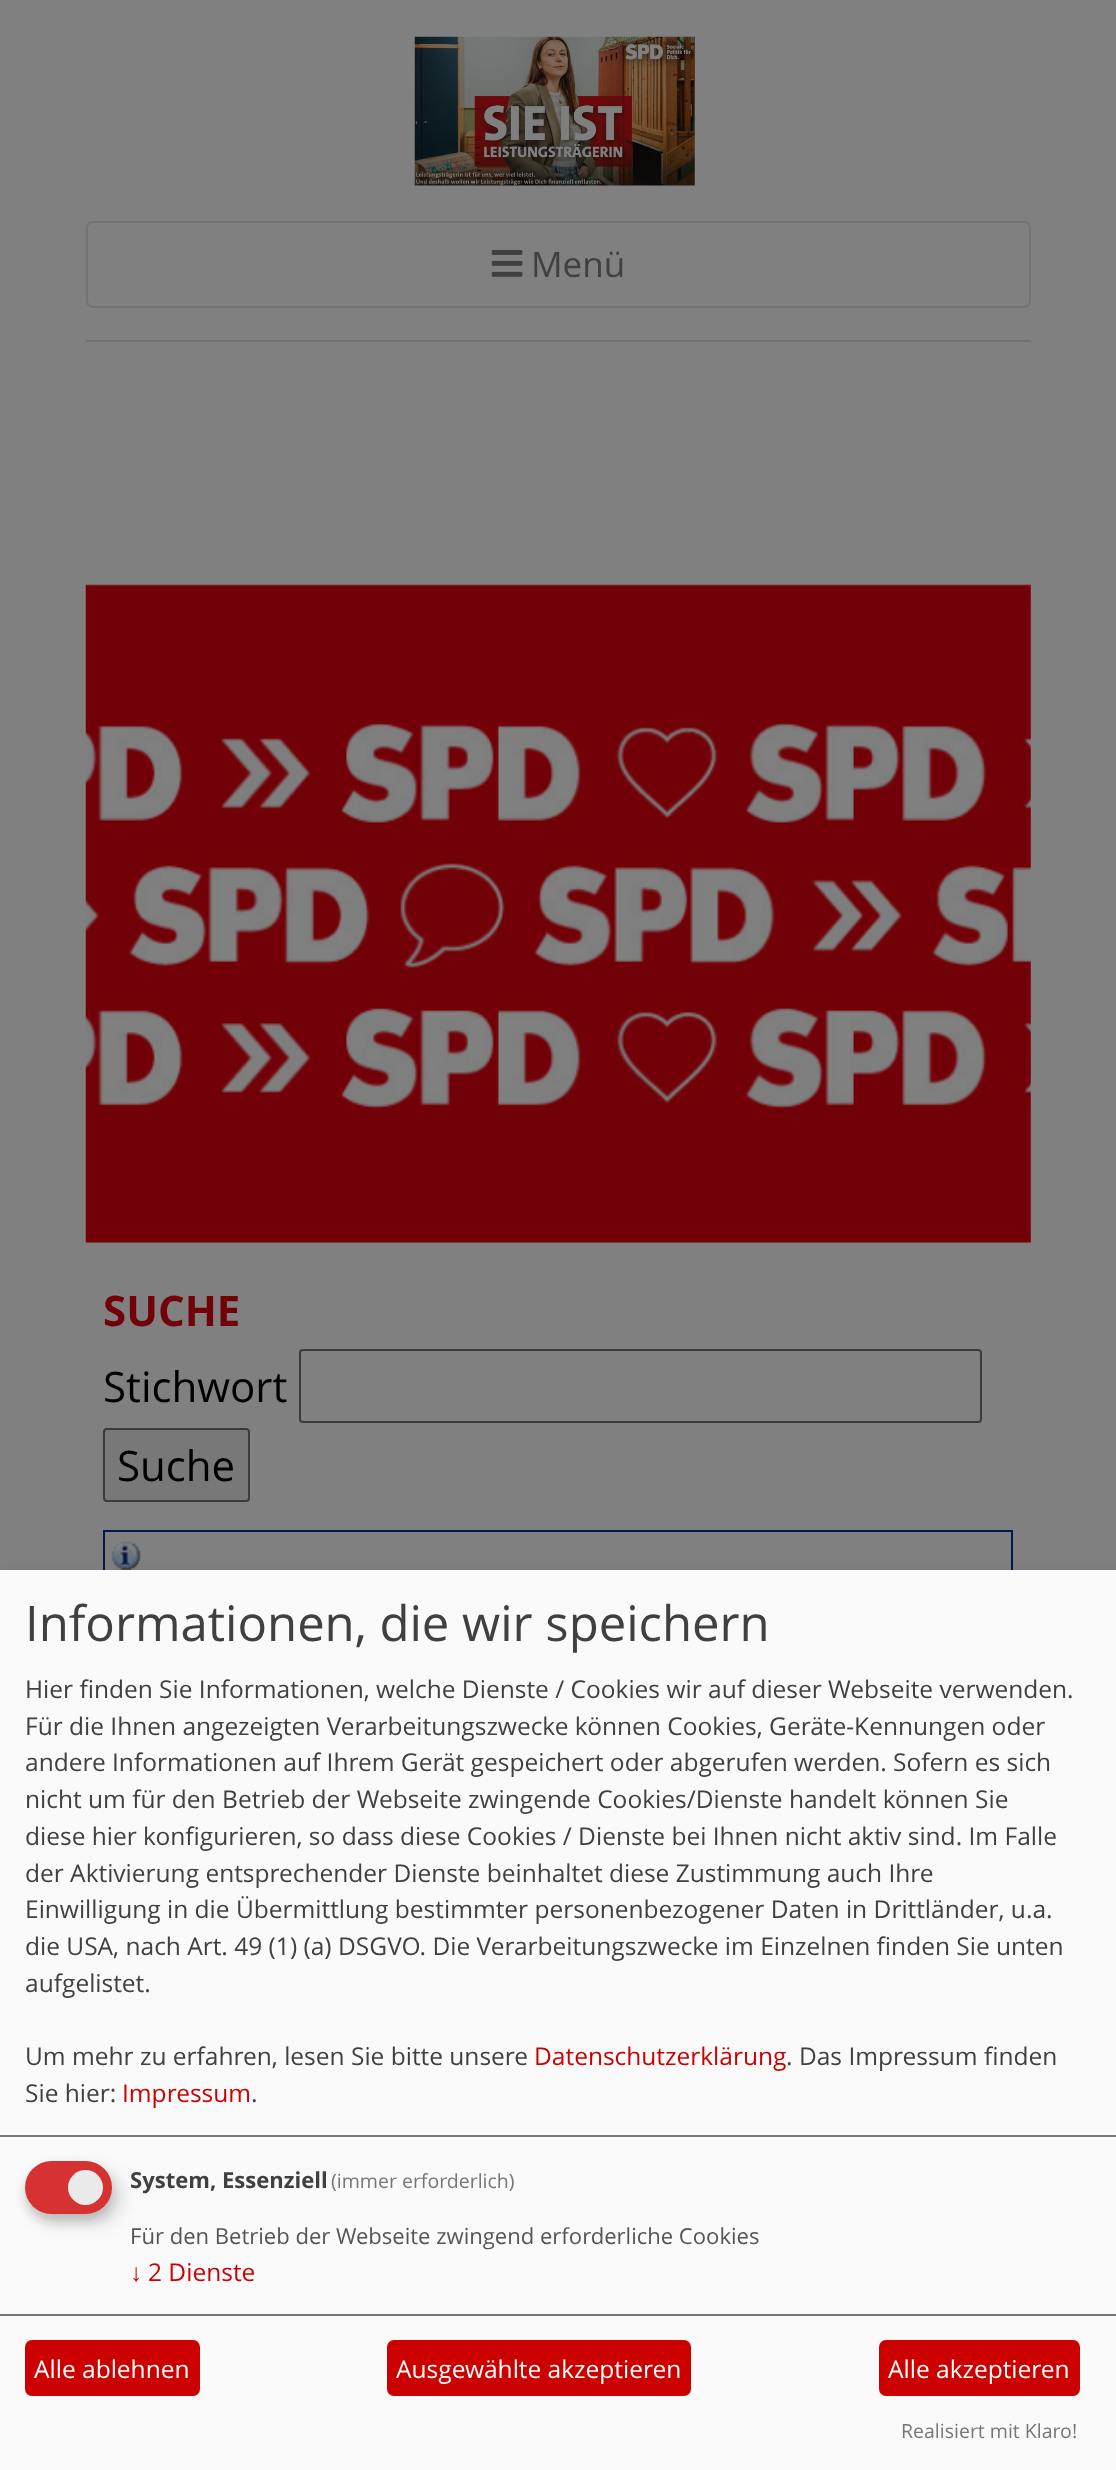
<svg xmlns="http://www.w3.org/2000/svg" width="1116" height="2470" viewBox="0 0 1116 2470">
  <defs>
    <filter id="blur1" x="-50%" y="-200%" width="200%" height="500%"><feGaussianBlur stdDeviation="9"/></filter>
    <filter id="blur2" x="-50%" y="-200%" width="200%" height="500%"><feGaussianBlur stdDeviation="5"/></filter>
  </defs>
  <rect width="100%" height="100%" fill="#808080"/>
  <rect x="86" y="340" width="945" height="2" fill="#6f7173"/>
  <image x="414" y="36" width="281" height="150" href="img1.png"/>
  <rect x="87" y="222" width="943" height="85" rx="6" fill="none" stroke="#737373" stroke-width="2"/>
  <image x="491" y="250" width="32" height="27" href="img2.png"/>
  <text x="531" y="277" font-family="Open Sans" font-size="35" fill="#404040">Menü</text>
  <image x="85" y="584" width="946" height="659" href="img3.png"/>
  <text x="103" y="1326" font-family="Open Sans" font-size="42" font-weight="bold" fill="#720008">SUCHE</text>
  <text x="103" y="1402" font-family="Open Sans" font-size="42" fill="#000000">Stichwort</text>
  <rect x="300" y="1350" width="681" height="72" rx="3" fill="none" stroke="#3b3b3b" stroke-width="2"/>
  <rect x="104" y="1429" width="145" height="72" rx="3" fill="#787878" stroke="#3b3b3b" stroke-width="2"/>
  <text x="117" y="1481" font-family="Open Sans" font-size="42" fill="#000000">Suche</text>
  <image x="111" y="1541" width="30" height="29" href="img4.png"/>
  <rect x="104" y="1531" width="908" height="141" fill="none" stroke="#001a4d" stroke-width="2"/>
  <rect x="9" y="1579" width="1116" height="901" fill="#000000" fill-opacity="0.19" filter="url(#blur1)"/>
  <rect x="0" y="1570" width="1116" height="900" fill="#fafafa"/>
  <rect x="0" y="2135" width="1116" height="2" fill="#777777"/>
  <text x="25" y="1641" font-family="Open Sans" font-size="49" fill="#404040">Informationen, die wir speichern</text>
  <text x="25" y="1698" font-family="Open Sans" font-size="24.5" fill="#404040">Hier finden Sie Informationen, welche Dienste / Cookies wir auf dieser Webseite verwenden.</text>
  <text x="25" y="1735" font-family="Open Sans" font-size="24.5" fill="#404040">Für die Ihnen angezeigten Verarbeitungszwecke können Cookies, Geräte-Kennungen oder</text>
  <text x="25" y="1771" font-family="Open Sans" font-size="24.5" fill="#404040">andere Informationen auf Ihrem Gerät gespeichert oder abgerufen werden. Sofern es sich</text>
  <text x="25" y="1808" font-family="Open Sans" font-size="24.5" fill="#404040">nicht um für den Betrieb der Webseite zwingende Cookies/Dienste handelt können Sie</text>
  <text x="25" y="1845" font-family="Open Sans" font-size="24.5" fill="#404040">diese hier konfigurieren, so dass diese Cookies / Dienste bei Ihnen nicht aktiv sind. Im Falle</text>
  <text x="25" y="1882" font-family="Open Sans" font-size="24.5" fill="#404040">der Aktivierung entsprechender Dienste beinhaltet diese Zustimmung auch Ihre</text>
  <text x="25" y="1918" font-family="Open Sans" font-size="24.5" fill="#404040">Einwilligung in die Übermittlung bestimmter personenbezogener Daten in Drittländer, u.a.</text>
  <text x="25" y="1955" font-family="Open Sans" font-size="24.5" fill="#404040">die USA, nach Art. 49 (1) (a) DSGVO. Die Verarbeitungszwecke im Einzelnen finden Sie unten</text>
  <text x="25" y="1992" font-family="Open Sans" font-size="24.5" fill="#404040">aufgelistet.</text>
  <text x="25" y="2065" font-family="Open Sans" font-size="24.5" fill="#404040">Um mehr zu erfahren, lesen Sie bitte unsere</text>
  <text x="534" y="2065" font-family="Open Sans" font-size="24.5" fill="#cd0000">Datenschutzerklärung</text>
  <text x="786" y="2065" font-family="Open Sans" font-size="24.5" fill="#404040">. Das Impressum finden</text>
  <text x="25" y="2102" font-family="Open Sans" font-size="24.5" fill="#404040">Sie hier:</text>
  <text x="122" y="2102" font-family="Open Sans" font-size="24.5" fill="#cd0000">Impressum</text>
  <text x="251" y="2102" font-family="Open Sans" font-size="24.5" fill="#404040">.</text>
  <rect x="33" y="2170" width="88" height="53" rx="26.5" fill="#000000" fill-opacity="0.15" filter="url(#blur1)"/>
  <rect x="25" y="2168" width="87" height="53" rx="26.5" fill="#323232" fill-opacity="0.2" filter="url(#blur2)"/>
  <rect x="25" y="2161" width="87" height="53" rx="26.5" fill="#d63232"/>
  <circle cx="85.5" cy="2187.5" r="17.5" fill="#eaeaea"/>
  <text x="130" y="2188" font-family="Open Sans" font-size="22.05" font-weight="bold" fill="#404040">System, Essenziell</text>
  <text x="331" y="2188" font-family="Open Sans" font-size="19.5" fill="#777777">(immer erforderlich)</text>
  <text x="130" y="2244" font-family="Open Sans" font-size="22.05" fill="#555555">Für den Betrieb der Webseite zwingend erforderliche Cookies</text>
  <text x="130" y="2281" font-family="Liberation Sans" font-size="24.5" fill="#cd0000">↓</text>
  <text x="148" y="2281" font-family="Open Sans" font-size="24.5" fill="#cd0000">2 Dienste</text>
  <rect x="0" y="2314" width="1116" height="2" fill="#777777"/>
  <rect x="25" y="2340" width="175" height="56" rx="7" fill="#cd0000"/>
  <text x="34" y="2378" font-family="Open Sans" font-size="24.5" fill="#ffffff">Alle ablehnen</text>
  <rect x="387" y="2340" width="304" height="56" rx="7" fill="#cd0000"/>
  <text x="396" y="2378" font-family="Open Sans" font-size="24.5" fill="#ffffff">Ausgewählte akzeptieren</text>
  <rect x="879" y="2340" width="201" height="56" rx="7" fill="#cd0000"/>
  <text x="888" y="2378" font-family="Open Sans" font-size="24.5" fill="#ffffff">Alle akzeptieren</text>
  <text x="901" y="2438" font-family="Open Sans" font-size="19.5" fill="#777777">Realisiert mit Klaro!</text>
</svg>
